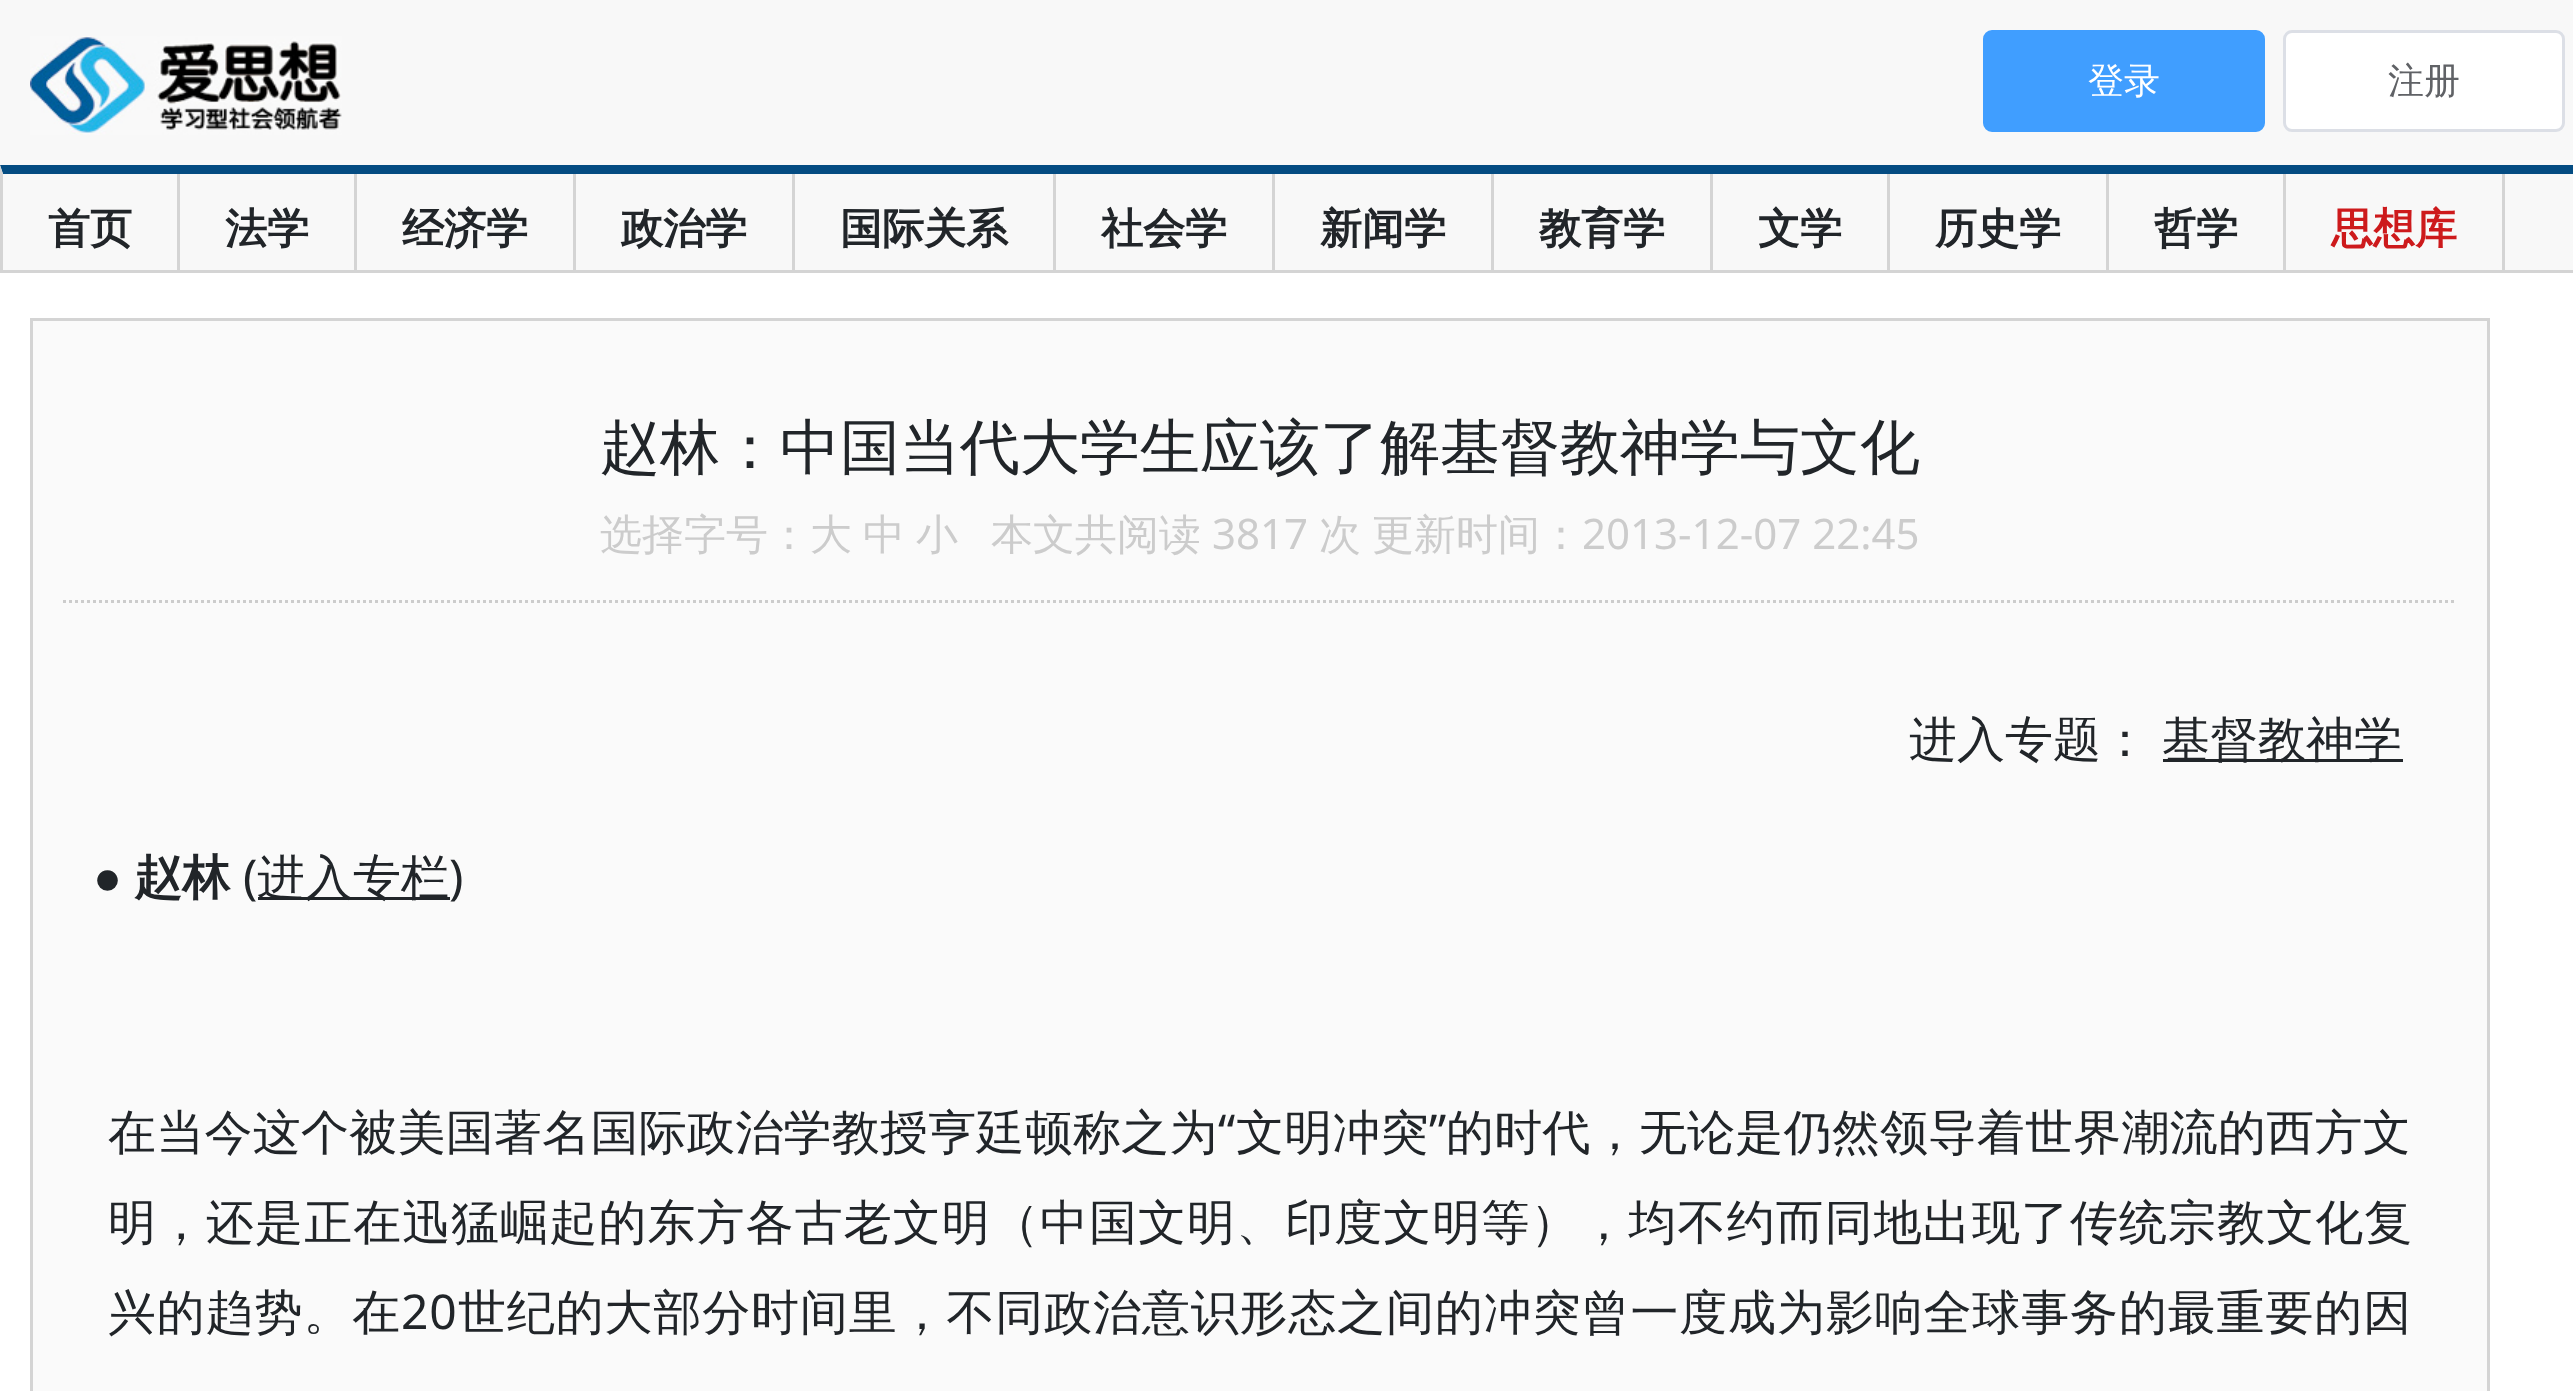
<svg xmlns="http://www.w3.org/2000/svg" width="2573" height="1391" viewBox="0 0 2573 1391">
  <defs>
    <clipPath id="clip1"><rect x="0" y="165" width="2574" height="105"/></clipPath>
  </defs>
  <rect width="100%" height="100%" fill="#ffffff"/>
  <rect x="0" y="0" width="2573" height="270" fill="#f8f8f8"/>
  <rect x="0" y="270" width="2573" height="3" fill="#d4d4d4"/>
  <image x="30" y="36" width="312" height="99" href="img1.png"/>
  <rect x="1984.5" y="31.5" width="279" height="99" rx="7.5" fill="#409eff" stroke="#409eff" stroke-width="3"/>
  <text x="2088" y="93" font-family="WenQuanYi Zen Hei" font-size="36" font-weight="500" fill="#ffffff">登录</text>
  <rect x="2284.5" y="31.5" width="279" height="99" rx="7.5" fill="#ffffff" stroke="#dcdfe6" stroke-width="3"/>
  <text x="2388" y="93" font-family="WenQuanYi Zen Hei" font-size="36" font-weight="500" fill="#606266">注册</text>
  <path d="M0 165H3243V174H3Z" fill="#044c82"/>
  <g clip-path="url(#clip1)">
    <path d="M0 282V165L3 174V282Z" fill="#d4d4d4"/>
  </g>
  <rect x="177" y="174" width="3" height="96" fill="#d4d4d4"/>
  <text x="48" y="243" font-family="WenQuanYi Zen Hei" font-size="42" font-weight="bold" fill="#212529">首页</text>
  <rect x="354" y="174" width="3" height="96" fill="#d4d4d4"/>
  <text x="225" y="243" font-family="WenQuanYi Zen Hei" font-size="42" font-weight="bold" fill="#212529">法学</text>
  <rect x="573" y="174" width="3" height="96" fill="#d4d4d4"/>
  <text x="402" y="243" font-family="WenQuanYi Zen Hei" font-size="42" font-weight="bold" fill="#212529">经济学</text>
  <rect x="792" y="174" width="3" height="96" fill="#d4d4d4"/>
  <text x="621" y="243" font-family="WenQuanYi Zen Hei" font-size="42" font-weight="bold" fill="#212529">政治学</text>
  <rect x="1053" y="174" width="3" height="96" fill="#d4d4d4"/>
  <text x="840" y="243" font-family="WenQuanYi Zen Hei" font-size="42" font-weight="bold" fill="#212529">国际关系</text>
  <rect x="1272" y="174" width="3" height="96" fill="#d4d4d4"/>
  <text x="1101" y="243" font-family="WenQuanYi Zen Hei" font-size="42" font-weight="bold" fill="#212529">社会学</text>
  <rect x="1491" y="174" width="3" height="96" fill="#d4d4d4"/>
  <text x="1320" y="243" font-family="WenQuanYi Zen Hei" font-size="42" font-weight="bold" fill="#212529">新闻学</text>
  <rect x="1710" y="174" width="3" height="96" fill="#d4d4d4"/>
  <text x="1539" y="243" font-family="WenQuanYi Zen Hei" font-size="42" font-weight="bold" fill="#212529">教育学</text>
  <rect x="1887" y="174" width="3" height="96" fill="#d4d4d4"/>
  <text x="1758" y="243" font-family="WenQuanYi Zen Hei" font-size="42" font-weight="bold" fill="#212529">文学</text>
  <rect x="2106" y="174" width="3" height="96" fill="#d4d4d4"/>
  <text x="1935" y="243" font-family="WenQuanYi Zen Hei" font-size="42" font-weight="bold" fill="#212529">历史学</text>
  <rect x="2283" y="174" width="3" height="96" fill="#d4d4d4"/>
  <text x="2154" y="243" font-family="WenQuanYi Zen Hei" font-size="42" font-weight="bold" fill="#212529">哲学</text>
  <rect x="2502" y="174" width="3" height="96" fill="#d4d4d4"/>
  <text x="2331" y="243" font-family="WenQuanYi Zen Hei" font-size="42" font-weight="bold" fill="#cd1a1c">思想库</text>
  <rect x="31.5" y="319.5" width="2457" height="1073" fill="#fafafa" stroke="#d4d4d4" stroke-width="3"/>
  <text x="600" y="468" font-family="WenQuanYi Zen Hei" font-size="60" font-weight="500" fill="#212529">赵林：中国当代大学生应该了解基督教神学与文化</text>
  <path d="M63 601.5H2457" fill="none" stroke="#cccccc" stroke-width="3" stroke-dasharray="3 3"/>
  <text x="600" y="549" font-family="WenQuanYi Zen Hei" font-size="42" font-weight="500" fill="#cccccc">选择字号：大</text>
  <text x="863" y="549" font-family="WenQuanYi Zen Hei" font-size="42" font-weight="500" fill="#cccccc">中</text>
  <text x="916" y="549" font-family="WenQuanYi Zen Hei" font-size="42" font-weight="500" fill="#cccccc">小</text>
  <text x="991" y="549" font-family="WenQuanYi Zen Hei" font-size="42" font-weight="500" fill="#cccccc">本文共阅读</text>
  <text x="1212" y="549" font-family="Noto Sans" font-size="42" fill="#cccccc">3817</text>
  <text x="1319" y="549" font-family="WenQuanYi Zen Hei" font-size="42" font-weight="500" fill="#cccccc">次</text>
  <text x="1372" y="549" font-family="WenQuanYi Zen Hei" font-size="42" font-weight="500" fill="#cccccc">更新时间：</text>
  <text x="1582" y="549" font-family="Noto Sans" font-size="42" fill="#cccccc">2013-12-07 22:45</text>
  <text x="1909" y="756" font-family="WenQuanYi Zen Hei" font-size="48" font-weight="500" fill="#212529">进入专题：</text>
  <rect x="2163" y="759" width="240" height="3" fill="#212529"/>
  <text x="2162" y="756" font-family="WenQuanYi Zen Hei" font-size="48" font-weight="500" fill="#212529">基督教神学</text>
  <text x="93" y="894" font-family="Liberation Sans" font-size="48" fill="#212529">●</text>
  <text x="134" y="894" font-family="WenQuanYi Zen Hei" font-size="48" font-weight="bold" fill="#212529">赵林</text>
  <text x="243" y="894" font-family="Noto Sans" font-size="48" fill="#212529">(</text>
  <rect x="258" y="897" width="192" height="3" fill="#212529"/>
  <text x="257" y="894" font-family="WenQuanYi Zen Hei" font-size="48" font-weight="500" fill="#212529">进入专栏</text>
  <text x="449" y="894" font-family="Noto Sans" font-size="48" fill="#212529">)</text>
  <text x="108" y="1149" font-family="WenQuanYi Zen Hei" font-size="48" font-weight="500" letter-spacing="0.25" fill="#212529">在当今这个被美国著名国际政治学教授亨廷顿称之为</text>
  <text x="1218" y="1149" font-family="Noto Sans" font-size="48" letter-spacing="0.25" fill="#212529">“</text>
  <text x="1236" y="1149" font-family="WenQuanYi Zen Hei" font-size="48" font-weight="500" letter-spacing="0.25" fill="#212529">文明冲突</text>
  <text x="1429" y="1149" font-family="Noto Sans" font-size="48" letter-spacing="0.25" fill="#212529">”</text>
  <text x="1446" y="1149" font-family="WenQuanYi Zen Hei" font-size="48" font-weight="500" letter-spacing="0.25" fill="#212529">的时代，无论是仍然领导着世界潮流的西方文</text>
  <text x="108" y="1239" font-family="WenQuanYi Zen Hei" font-size="48" font-weight="500" letter-spacing="1.05" fill="#212529">明，还是正在迅猛崛起的东方各古老文明（中国文明、印度文明等），均不约而同地出现了传统宗教文化复</text>
  <text x="108" y="1329" font-family="WenQuanYi Zen Hei" font-size="48" font-weight="500" letter-spacing="0.85" fill="#212529">兴的趋势。在</text>
  <text x="401" y="1329" font-family="Noto Sans" font-size="48" letter-spacing="0.85" fill="#212529">20</text>
  <text x="458" y="1329" font-family="WenQuanYi Zen Hei" font-size="48" font-weight="500" letter-spacing="0.85" fill="#212529">世纪的大部分时间里，不同政治意识形态之间的冲突曾一度成为影响全球事务的最重要的因</text>
</svg>
